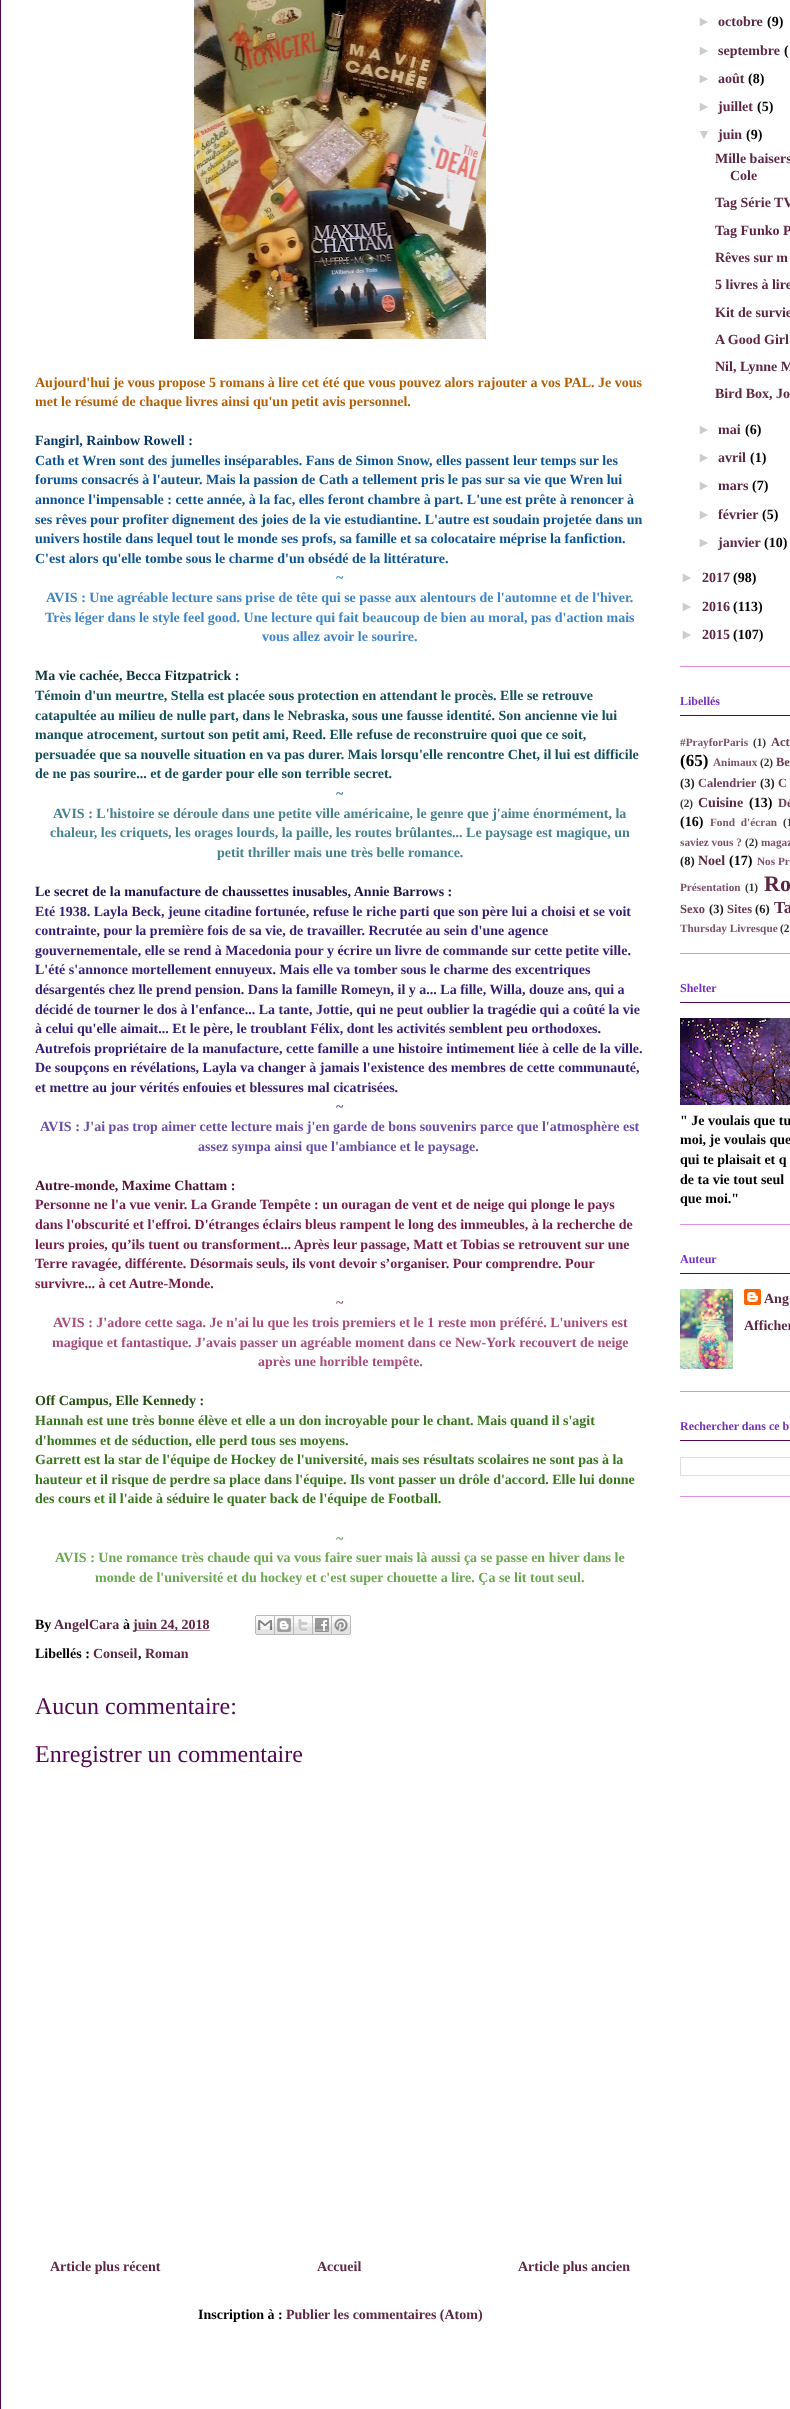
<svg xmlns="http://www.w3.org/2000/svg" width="790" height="2409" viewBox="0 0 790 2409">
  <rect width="100%" height="100%" fill="#ffffff"/>
  <rect x="0" y="0" width="1" height="2409" fill="#500650"/>
  <image x="194" y="0" width="292" height="339" href="img1.png"/>
  <text x="35" y="387" font-family="Liberation Serif" font-size="14" font-weight="bold" fill="#b45f06">Aujourd'hui je vous propose 5 romans à lire cet été que vous pouvez alors rajouter a vos PAL. Je vous</text>
  <text x="35" y="406" font-family="Liberation Serif" font-size="14" font-weight="bold" fill="#b45f06">met le résumé de chaque livres ainsi qu'un petit avis personnel.</text>
  <text x="35" y="445" font-family="Liberation Serif" font-size="14" font-weight="bold" fill="#073763">Fangirl, Rainbow Rowell :</text>
  <text x="35" y="465" font-family="Liberation Serif" font-size="14" font-weight="bold" fill="#0b5394">Cath et Wren sont des jumelles inséparables. Fans de Simon Snow, elles passent leur temps sur les</text>
  <text x="35" y="484" font-family="Liberation Serif" font-size="14" font-weight="bold" fill="#0b5394">forums consacrés à l'auteur. Mais la passion de Cath a tellement pris le pas sur sa vie que Wren lui</text>
  <text x="35" y="504" font-family="Liberation Serif" font-size="14" font-weight="bold" fill="#0b5394">annonce l'impensable : cette année, à la fac, elles feront chambre à part. L'une est prête à renoncer à</text>
  <text x="35" y="524" font-family="Liberation Serif" font-size="14" font-weight="bold" fill="#0b5394">ses rêves pour profiter dignement des joies de la vie estudiantine. L'autre est soudain projetée dans un</text>
  <text x="35" y="543" font-family="Liberation Serif" font-size="14" font-weight="bold" fill="#0b5394">univers hostile dans lequel tout le monde ses profs, sa famille et sa colocataire méprise la fanfiction.</text>
  <text x="35" y="563" font-family="Liberation Serif" font-size="14" font-weight="bold" fill="#0b5394">C'est alors qu'elle tombe sous le charme d'un obsédé de la littérature.</text>
  <text x="336" y="582" font-family="Liberation Serif" font-size="14" font-weight="bold" fill="#3d85c6">~</text>
  <text x="46" y="602" font-family="Liberation Serif" font-size="14" font-weight="bold" fill="#3d85c6">AVIS : Une agréable lecture sans prise de tête qui se passe aux alentours de l'automne et de l'hiver.</text>
  <text x="45" y="622" font-family="Liberation Serif" font-size="14" font-weight="bold" fill="#3d85c6">Très léger dans le style feel good. Une lecture qui fait beaucoup de bien au moral, pas d'action mais</text>
  <text x="262" y="641" font-family="Liberation Serif" font-size="14" font-weight="bold" fill="#3d85c6">vous allez avoir le sourire.</text>
  <text x="35" y="680" font-family="Liberation Serif" font-size="14" font-weight="bold" fill="#0c343d">Ma vie cachée, Becca Fitzpatrick :</text>
  <text x="35" y="700" font-family="Liberation Serif" font-size="14" font-weight="bold" fill="#134f5c">Témoin d'un meurtre, Stella est placée sous protection en attendant le procès. Elle se retrouve</text>
  <text x="35" y="720" font-family="Liberation Serif" font-size="14" font-weight="bold" fill="#134f5c">catapultée au milieu de nulle part, dans le Nebraska, sous une fausse identité. Son ancienne vie lui</text>
  <text x="35" y="739" font-family="Liberation Serif" font-size="14" font-weight="bold" fill="#134f5c">manque atrocement, surtout son petit ami, Reed. Elle refuse de reconstruire quoi que ce soit,</text>
  <text x="35" y="759" font-family="Liberation Serif" font-size="14" font-weight="bold" fill="#134f5c">persuadée que sa nouvelle situation en va pas durer. Mais lorsqu'elle rencontre Chet, il lui est difficile</text>
  <text x="35" y="778" font-family="Liberation Serif" font-size="14" font-weight="bold" fill="#134f5c">de ne pas sourire... et de garder pour elle son terrible secret.</text>
  <text x="336" y="798" font-family="Liberation Serif" font-size="14" font-weight="bold" fill="#45818e">~</text>
  <text x="53" y="818" font-family="Liberation Serif" font-size="14" font-weight="bold" fill="#45818e">AVIS : L'histoire se déroule dans une petite ville américaine, le genre que j'aime énormément, la</text>
  <text x="50" y="837" font-family="Liberation Serif" font-size="14" font-weight="bold" fill="#45818e">chaleur, les criquets, les orages lourds, la paille, les routes brûlantes... Le paysage est magique, un</text>
  <text x="217" y="857" font-family="Liberation Serif" font-size="14" font-weight="bold" fill="#45818e">petit thriller mais une très belle romance.</text>
  <text x="35" y="896" font-family="Liberation Serif" font-size="14" font-weight="bold" fill="#20124d">Le secret de la manufacture de chaussettes inusables, Annie Barrows :</text>
  <text x="35" y="916" font-family="Liberation Serif" font-size="14" font-weight="bold" fill="#351c75">Eté 1938. Layla Beck, jeune citadine fortunée, refuse le riche parti que son père lui a choisi et se voit</text>
  <text x="35" y="935" font-family="Liberation Serif" font-size="14" font-weight="bold" fill="#351c75">contrainte, pour la première fois de sa vie, de travailler. Recrutée au sein d'une agence</text>
  <text x="35" y="955" font-family="Liberation Serif" font-size="14" font-weight="bold" fill="#351c75">gouvernementale, elle se rend à Macedonia pour y écrire un livre de commande sur cette petite ville.</text>
  <text x="35" y="974" font-family="Liberation Serif" font-size="14" font-weight="bold" fill="#351c75">L'été s'annonce mortellement ennuyeux. Mais elle va tomber sous le charme des excentriques</text>
  <text x="35" y="994" font-family="Liberation Serif" font-size="14" font-weight="bold" fill="#351c75">désargentés chez lle prend pension. Dans la famille Romeyn, il y a... La fille, Willa, douze ans, qui a</text>
  <text x="35" y="1014" font-family="Liberation Serif" font-size="14" font-weight="bold" fill="#351c75">décidé de tourner le dos à l'enfance... La tante, Jottie, qui ne peut oublier la tragédie qui a coûté la vie</text>
  <text x="35" y="1033" font-family="Liberation Serif" font-size="14" font-weight="bold" fill="#351c75">à celui qu'elle aimait... Et le père, le troublant Félix, dont les activités semblent peu orthodoxes.</text>
  <text x="35" y="1053" font-family="Liberation Serif" font-size="14" font-weight="bold" fill="#351c75">Autrefois propriétaire de la manufacture, cette famille a une histoire intimement liée à celle de la ville.</text>
  <text x="35" y="1072" font-family="Liberation Serif" font-size="14" font-weight="bold" fill="#351c75">De soupçons en révélations, Layla va changer à jamais l'existence des membres de cette communauté,</text>
  <text x="35" y="1092" font-family="Liberation Serif" font-size="14" font-weight="bold" fill="#351c75">et mettre au jour vérités enfouies et blessures mal cicatrisées.</text>
  <text x="336" y="1111" font-family="Liberation Serif" font-size="14" font-weight="bold" fill="#674ea7">~</text>
  <text x="40" y="1131" font-family="Liberation Serif" font-size="14" font-weight="bold" fill="#674ea7">AVIS : J'ai pas trop aimer cette lecture mais j'en garde de bons souvenirs parce que l'atmosphère est</text>
  <text x="198" y="1151" font-family="Liberation Serif" font-size="14" font-weight="bold" fill="#674ea7">assez sympa ainsi que l'ambiance et le paysage.</text>
  <text x="35" y="1190" font-family="Liberation Serif" font-size="14" font-weight="bold" fill="#4c1130">Autre-monde, Maxime Chattam :</text>
  <text x="35" y="1209" font-family="Liberation Serif" font-size="14" font-weight="bold" fill="#741b47">Personne ne l'a vue venir. La Grande Tempête : un ouragan de vent et de neige qui plonge le pays</text>
  <text x="35" y="1229" font-family="Liberation Serif" font-size="14" font-weight="bold" fill="#741b47">dans l'obscurité et l'effroi. D'étranges éclairs bleus rampent le long des immeubles, à la recherche de</text>
  <text x="35" y="1249" font-family="Liberation Serif" font-size="14" font-weight="bold" fill="#741b47">leurs proies, qu’ils tuent ou transforment... Après leur passage, Matt et Tobias se retrouvent sur une</text>
  <text x="35" y="1268" font-family="Liberation Serif" font-size="14" font-weight="bold" fill="#741b47">Terre ravagée, différente. Désormais seuls, ils vont devoir s’organiser. Pour comprendre. Pour</text>
  <text x="35" y="1288" font-family="Liberation Serif" font-size="14" font-weight="bold" fill="#741b47">survivre... à cet Autre-Monde.</text>
  <text x="336" y="1307" font-family="Liberation Serif" font-size="14" font-weight="bold" fill="#a64d79">~</text>
  <text x="53" y="1327" font-family="Liberation Serif" font-size="14" font-weight="bold" fill="#a64d79">AVIS : J'adore cette saga. Je n'ai lu que les trois premiers et le 1 reste mon préféré. L'univers est</text>
  <text x="52" y="1347" font-family="Liberation Serif" font-size="14" font-weight="bold" fill="#a64d79">magique et fantastique. J'avais passer un agréable moment dans ce New-York recouvert de neige</text>
  <text x="258" y="1366" font-family="Liberation Serif" font-size="14" font-weight="bold" fill="#a64d79">après une horrible tempête.</text>
  <text x="35" y="1405" font-family="Liberation Serif" font-size="14" font-weight="bold" fill="#274e13">Off Campus, Elle Kennedy :</text>
  <text x="35" y="1425" font-family="Liberation Serif" font-size="14" font-weight="bold" fill="#38761d">Hannah est une très bonne élève et elle a un don incroyable pour le chant. Mais quand il s'agit</text>
  <text x="35" y="1445" font-family="Liberation Serif" font-size="14" font-weight="bold" fill="#38761d">d'hommes et de séduction, elle perd tous ses moyens.</text>
  <text x="35" y="1464" font-family="Liberation Serif" font-size="14" font-weight="bold" fill="#38761d">Garrett est la star de l'équipe de Hockey de l'université, mais ses résultats scolaires ne sont pas à la</text>
  <text x="35" y="1484" font-family="Liberation Serif" font-size="14" font-weight="bold" fill="#38761d">hauteur et il risque de perdre sa place dans l'équipe. Ils vont passer un drôle d'accord. Elle lui donne</text>
  <text x="35" y="1503" font-family="Liberation Serif" font-size="14" font-weight="bold" fill="#38761d">des cours et il l'aide à séduire le quater back de l'équipe de Football.</text>
  <text x="336" y="1543" font-family="Liberation Serif" font-size="14" font-weight="bold" fill="#6aa84f">~</text>
  <text x="55" y="1562" font-family="Liberation Serif" font-size="14" font-weight="bold" fill="#6aa84f">AVIS : Une romance très chaude qui va vous faire suer mais là aussi ça se passe en hiver dans le</text>
  <text x="95" y="1582" font-family="Liberation Serif" font-size="14" font-weight="bold" fill="#6aa84f">monde de l'université et du hockey et c'est super chouette a lire. Ça se lit tout seul.</text>
  <text x="35" y="1629" font-family="Liberation Serif" font-size="14" font-weight="bold" fill="#000000">By</text>
  <text x="54" y="1629" font-family="Liberation Serif" font-size="14" font-weight="bold" fill="#5d2643">AngelCara</text>
  <text x="123" y="1629" font-family="Liberation Serif" font-size="14" font-weight="bold" fill="#000000">à</text>
  <path d="M133.5 1630.5H210" fill="none" stroke="#5d2643" stroke-dasharray="1 1"/>
  <text x="133" y="1629" font-family="Liberation Serif" font-size="14" font-weight="bold" fill="#5d2643">juin 24, 2018</text>
  <image x="255" y="1615" width="20" height="20" href="img2.png"/>
  <image x="275" y="1615" width="19" height="20" href="img3.png"/>
  <image x="294" y="1615" width="19" height="20" href="img4.png"/>
  <image x="313" y="1615" width="19" height="20" href="img5.png"/>
  <image x="332" y="1615" width="19" height="20" href="img6.png"/>
  <text x="35" y="1658" font-family="Liberation Serif" font-size="14" font-weight="bold" fill="#000000">Libellés :</text>
  <text x="93" y="1658" font-family="Liberation Serif" font-size="14" font-weight="bold" fill="#5d2643">Conseil</text>
  <text x="138" y="1658" font-family="Liberation Serif" font-size="14" font-weight="bold" fill="#000000">,</text>
  <text x="145" y="1658" font-family="Liberation Serif" font-size="14" font-weight="bold" fill="#5d2643">Roman</text>
  <text x="35" y="1714" font-family="Liberation Serif" font-size="24" fill="#500650">Aucun commentaire:</text>
  <text x="35" y="1762" font-family="Liberation Serif" font-size="24" fill="#500650">Enregistrer un commentaire</text>
  <text x="50" y="2271" font-family="Liberation Serif" font-size="14" font-weight="bold" fill="#5d2643">Article plus récent</text>
  <text x="317" y="2271" font-family="Liberation Serif" font-size="14" font-weight="bold" fill="#5d2643">Accueil</text>
  <text x="518" y="2271" font-family="Liberation Serif" font-size="14" font-weight="bold" fill="#5d2643">Article plus ancien</text>
  <text x="198" y="2319" font-family="Liberation Serif" font-size="14" font-weight="bold" fill="#000000">Inscription à :</text>
  <text x="286" y="2319" font-family="Liberation Serif" font-size="14" font-weight="bold" fill="#5d2643">Publier les commentaires (Atom)</text>
  <rect x="680" y="666" width="110" height="1" fill="#e38ce3"/>
  <text x="697" y="26" font-family="Liberation Sans" font-size="14" font-weight="bold" fill="#cccccc">►</text>
  <text x="718" y="26" font-family="Liberation Serif" font-size="14" font-weight="bold" fill="#5d2643">octobre</text>
  <text x="767" y="26" font-family="Liberation Serif" font-size="14" font-weight="bold" fill="#000000">(9)</text>
  <text x="697" y="55" font-family="Liberation Sans" font-size="14" font-weight="bold" fill="#cccccc">►</text>
  <text x="718" y="55" font-family="Liberation Serif" font-size="14" font-weight="bold" fill="#5d2643">septembre</text>
  <text x="784" y="55" font-family="Liberation Serif" font-size="14" font-weight="bold" fill="#000000">(</text>
  <text x="697" y="83" font-family="Liberation Sans" font-size="14" font-weight="bold" fill="#cccccc">►</text>
  <text x="718" y="83" font-family="Liberation Serif" font-size="14" font-weight="bold" fill="#5d2643">août</text>
  <text x="748" y="83" font-family="Liberation Serif" font-size="14" font-weight="bold" fill="#000000">(8)</text>
  <text x="697" y="111" font-family="Liberation Sans" font-size="14" font-weight="bold" fill="#cccccc">►</text>
  <text x="718" y="111" font-family="Liberation Serif" font-size="14" font-weight="bold" fill="#5d2643">juillet</text>
  <text x="757" y="111" font-family="Liberation Serif" font-size="14" font-weight="bold" fill="#000000">(5)</text>
  <text x="697" y="139" font-family="Liberation Sans" font-size="14" font-weight="bold" fill="#cccccc">▼</text>
  <text x="718" y="139" font-family="Liberation Serif" font-size="14" font-weight="bold" fill="#5d2643">juin</text>
  <text x="746" y="139" font-family="Liberation Serif" font-size="14" font-weight="bold" fill="#000000">(9)</text>
  <text x="715" y="163" font-family="Liberation Serif" font-size="14" font-weight="bold" fill="#5d2643">Mille baisers</text>
  <text x="730" y="180" font-family="Liberation Serif" font-size="14" font-weight="bold" fill="#5d2643">Cole</text>
  <text x="715" y="207" font-family="Liberation Serif" font-size="14" font-weight="bold" fill="#5d2643">Tag Série TV</text>
  <text x="715" y="235" font-family="Liberation Serif" font-size="14" font-weight="bold" fill="#5d2643">Tag Funko P</text>
  <text x="715" y="262" font-family="Liberation Serif" font-size="14" font-weight="bold" fill="#5d2643">Rêves sur m</text>
  <text x="715" y="289" font-family="Liberation Serif" font-size="14" font-weight="bold" fill="#5d2643">5 livres à lire</text>
  <text x="715" y="317" font-family="Liberation Serif" font-size="14" font-weight="bold" fill="#5d2643">Kit de survie</text>
  <text x="715" y="344" font-family="Liberation Serif" font-size="14" font-weight="bold" fill="#5d2643">A Good Girl</text>
  <text x="715" y="371" font-family="Liberation Serif" font-size="14" font-weight="bold" fill="#5d2643">Nil, Lynne M</text>
  <text x="715" y="398" font-family="Liberation Serif" font-size="14" font-weight="bold" fill="#5d2643">Bird Box, Jo</text>
  <text x="697" y="434" font-family="Liberation Sans" font-size="14" font-weight="bold" fill="#cccccc">►</text>
  <text x="718" y="434" font-family="Liberation Serif" font-size="14" font-weight="bold" fill="#5d2643">mai</text>
  <text x="745" y="434" font-family="Liberation Serif" font-size="14" font-weight="bold" fill="#000000">(6)</text>
  <text x="697" y="462" font-family="Liberation Sans" font-size="14" font-weight="bold" fill="#cccccc">►</text>
  <text x="718" y="462" font-family="Liberation Serif" font-size="14" font-weight="bold" fill="#5d2643">avril</text>
  <text x="750" y="462" font-family="Liberation Serif" font-size="14" font-weight="bold" fill="#000000">(1)</text>
  <text x="697" y="490" font-family="Liberation Sans" font-size="14" font-weight="bold" fill="#cccccc">►</text>
  <text x="718" y="490" font-family="Liberation Serif" font-size="14" font-weight="bold" fill="#5d2643">mars</text>
  <text x="752" y="490" font-family="Liberation Serif" font-size="14" font-weight="bold" fill="#000000">(7)</text>
  <text x="697" y="519" font-family="Liberation Sans" font-size="14" font-weight="bold" fill="#cccccc">►</text>
  <text x="718" y="519" font-family="Liberation Serif" font-size="14" font-weight="bold" fill="#5d2643">février</text>
  <text x="762" y="519" font-family="Liberation Serif" font-size="14" font-weight="bold" fill="#000000">(5)</text>
  <text x="697" y="547" font-family="Liberation Sans" font-size="14" font-weight="bold" fill="#cccccc">►</text>
  <text x="718" y="547" font-family="Liberation Serif" font-size="14" font-weight="bold" fill="#5d2643">janvier</text>
  <text x="764" y="547" font-family="Liberation Serif" font-size="14" font-weight="bold" fill="#000000">(10)</text>
  <text x="680" y="582" font-family="Liberation Sans" font-size="14" font-weight="bold" fill="#cccccc">►</text>
  <text x="702" y="582" font-family="Liberation Serif" font-size="14" font-weight="bold" fill="#5d2643">2017</text>
  <text x="733" y="582" font-family="Liberation Serif" font-size="14" font-weight="bold" fill="#000000">(98)</text>
  <text x="680" y="611" font-family="Liberation Sans" font-size="14" font-weight="bold" fill="#cccccc">►</text>
  <text x="702" y="611" font-family="Liberation Serif" font-size="14" font-weight="bold" fill="#5d2643">2016</text>
  <text x="733" y="611" font-family="Liberation Serif" font-size="14" font-weight="bold" fill="#000000">(113)</text>
  <text x="680" y="639" font-family="Liberation Sans" font-size="14" font-weight="bold" fill="#cccccc">►</text>
  <text x="702" y="639" font-family="Liberation Serif" font-size="14" font-weight="bold" fill="#5d2643">2015</text>
  <text x="733" y="639" font-family="Liberation Serif" font-size="14" font-weight="bold" fill="#000000">(107)</text>
  <rect x="680" y="953" width="110" height="1" fill="#e38ce3"/>
  <rect x="680" y="715" width="110" height="1" fill="#500650"/>
  <text x="680" y="705" font-family="Liberation Serif" font-size="12" font-weight="bold" fill="#7430bd">Libellés</text>
  <text x="680" y="746" font-family="Liberation Serif" font-size="11.25" font-weight="bold" fill="#7d5169">#PrayforParis</text>
  <text x="753" y="746" font-family="Liberation Serif" font-size="11.25" font-weight="bold" fill="#333333">(1)</text>
  <text x="771" y="746" word-spacing="2" font-family="Liberation Serif" font-size="12.5" font-weight="bold" fill="#6d3c56">Act</text>
  <text x="680" y="766" font-family="Liberation Serif" font-size="17" font-weight="bold" fill="#000000">(65)</text>
  <text x="713" y="766" font-family="Liberation Serif" font-size="11.25" font-weight="bold" fill="#7d5169">Animaux</text>
  <text x="760" y="766" font-family="Liberation Serif" font-size="11.25" font-weight="bold" fill="#333333">(2)</text>
  <text x="776" y="766" font-family="Liberation Serif" font-size="12.5" font-weight="bold" fill="#6d3c56">Be</text>
  <text x="680" y="787" font-family="Liberation Serif" font-size="12.5" font-weight="bold" fill="#1a1a1a">(3)</text>
  <text x="698" y="787" font-family="Liberation Serif" font-size="12.5" font-weight="bold" fill="#6d3c56">Calendrier</text>
  <text x="760" y="787" font-family="Liberation Serif" font-size="12.5" font-weight="bold" fill="#1a1a1a">(3)</text>
  <text x="778" y="787" font-family="Liberation Serif" font-size="12.5" font-weight="bold" fill="#6d3c56">C</text>
  <text x="680" y="807" font-family="Liberation Serif" font-size="11.25" font-weight="bold" fill="#333333">(2)</text>
  <text x="698" y="807" font-family="Liberation Serif" font-size="14" font-weight="bold" fill="#5d2643">Cuisine</text>
  <text x="749" y="807" font-family="Liberation Serif" font-size="14" font-weight="bold" fill="#000000">(13)</text>
  <text x="778" y="807" font-family="Liberation Serif" font-size="12.5" font-weight="bold" fill="#6d3c56">Dé</text>
  <text x="680" y="826" font-family="Liberation Serif" font-size="14" font-weight="bold" fill="#000000">(16)</text>
  <text x="710" y="826" word-spacing="3" font-family="Liberation Serif" font-size="11.25" font-weight="bold" fill="#7d5169">Fond d'écran</text>
  <text x="783" y="826" font-family="Liberation Serif" font-size="11.25" font-weight="bold" fill="#333333">(1</text>
  <text x="680" y="846" font-family="Liberation Serif" font-size="11.25" font-weight="bold" fill="#7d5169">saviez vous ?</text>
  <text x="745" y="846" font-family="Liberation Serif" font-size="11.25" font-weight="bold" fill="#333333">(2)</text>
  <text x="761" y="846" font-family="Liberation Serif" font-size="11.25" font-weight="bold" fill="#7d5169">magaz</text>
  <text x="680" y="865" font-family="Liberation Serif" font-size="12.5" font-weight="bold" fill="#1a1a1a">(8)</text>
  <text x="698" y="865" font-family="Liberation Serif" font-size="14" font-weight="bold" fill="#5d2643">Noel</text>
  <text x="729" y="865" font-family="Liberation Serif" font-size="14" font-weight="bold" fill="#000000">(17)</text>
  <text x="757" y="865" font-family="Liberation Serif" font-size="11.25" font-weight="bold" fill="#7d5169">Nos Pr</text>
  <text x="680" y="891" font-family="Liberation Serif" font-size="11.25" font-weight="bold" fill="#7d5169">Présentation</text>
  <text x="745" y="891" font-family="Liberation Serif" font-size="11.25" font-weight="bold" fill="#333333">(1)</text>
  <text x="764" y="891" font-family="Liberation Serif" font-size="22" font-weight="bold" fill="#5d2643">Ro</text>
  <text x="680" y="913" font-family="Liberation Serif" font-size="12.5" font-weight="bold" fill="#6d3c56">Sexo</text>
  <text x="709" y="913" font-family="Liberation Serif" font-size="12.5" font-weight="bold" fill="#1a1a1a">(3)</text>
  <text x="727" y="913" font-family="Liberation Serif" font-size="12.5" font-weight="bold" fill="#6d3c56">Sites</text>
  <text x="755" y="913" font-family="Liberation Serif" font-size="12.5" font-weight="bold" fill="#1a1a1a">(6)</text>
  <text x="774" y="913" font-family="Liberation Serif" font-size="17" font-weight="bold" fill="#5d2643">Ta</text>
  <text x="680" y="932" font-family="Liberation Serif" font-size="11.25" font-weight="bold" fill="#7d5169">Thursday Livresque</text>
  <text x="780" y="932" font-family="Liberation Serif" font-size="11.25" font-weight="bold" fill="#333333">(2</text>
  <rect x="680" y="1224" width="110" height="1" fill="#e38ce3"/>
  <rect x="680" y="1002" width="110" height="1" fill="#500650"/>
  <text x="680" y="992" font-family="Liberation Serif" font-size="12" font-weight="bold" fill="#7430bd">Shelter</text>
  <image x="680" y="1018" width="110" height="87" href="img7.png"/>
  <text x="680" y="1125" font-family="Liberation Serif" font-size="14" font-weight="bold" fill="#000000">" Je voulais que tu</text>
  <text x="680" y="1144" font-family="Liberation Serif" font-size="14" font-weight="bold" fill="#000000">moi, je voulais que</text>
  <text x="680" y="1164" font-family="Liberation Serif" font-size="14" font-weight="bold" fill="#000000">qui te plaisait et q</text>
  <text x="680" y="1184" font-family="Liberation Serif" font-size="14" font-weight="bold" fill="#000000">de ta vie tout seul</text>
  <text x="680" y="1203" font-family="Liberation Serif" font-size="14" font-weight="bold" fill="#000000">que moi."</text>
  <rect x="680" y="1391" width="110" height="1" fill="#e38ce3"/>
  <rect x="680" y="1273" width="110" height="1" fill="#500650"/>
  <text x="680" y="1263" font-family="Liberation Serif" font-size="12" font-weight="bold" fill="#7430bd">Auteur</text>
  <image x="680" y="1289" width="53" height="80" href="img8.png"/>
  <image x="744" y="1289" width="17" height="16" href="img9.png"/>
  <text x="764" y="1303" font-family="Liberation Serif" font-size="14" font-weight="bold" fill="#5d2643">Ang</text>
  <text x="744" y="1330" font-family="Liberation Serif" font-size="14" font-weight="bold" fill="#5d2643">Afficher</text>
  <rect x="680" y="1496" width="110" height="1" fill="#e38ce3"/>
  <rect x="680" y="1440" width="110" height="1" fill="#500650"/>
  <text x="680" y="1430" font-family="Liberation Serif" font-size="12" font-weight="bold" fill="#7430bd">Rechercher dans ce b</text>
  <rect x="680.5" y="1457.5" width="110" height="18" fill="none" stroke="#dddddd"/>
</svg>
